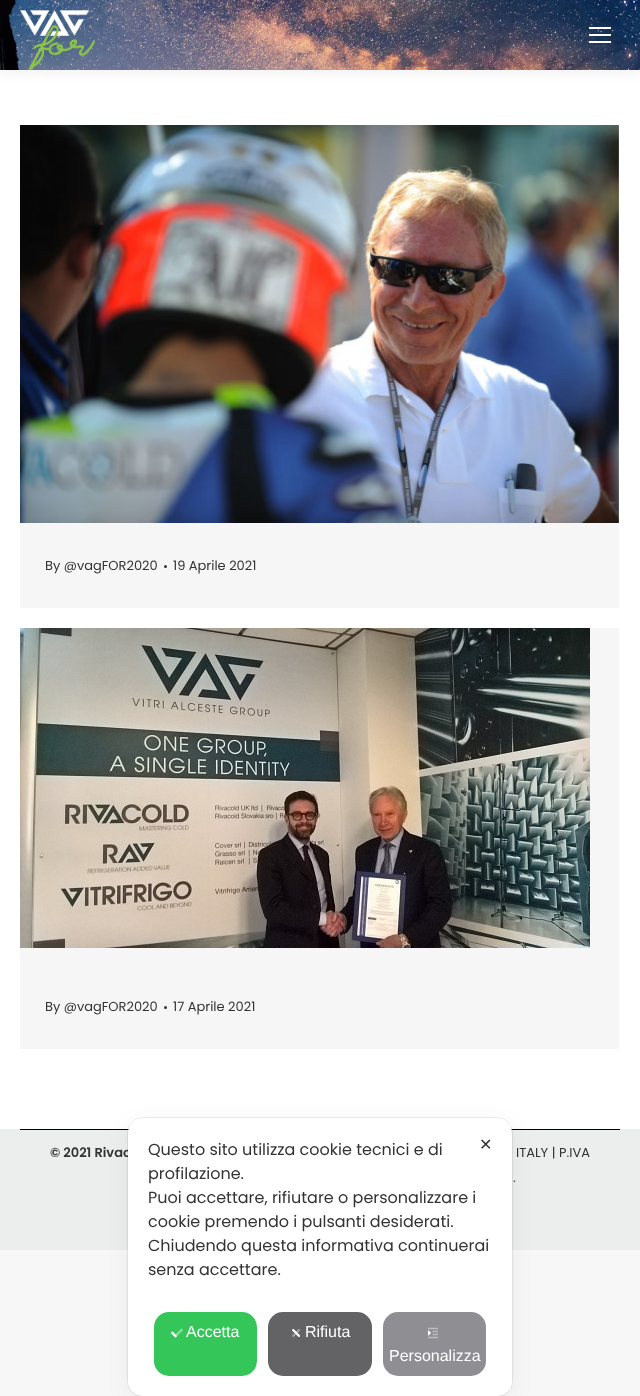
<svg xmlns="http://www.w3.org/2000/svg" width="640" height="1396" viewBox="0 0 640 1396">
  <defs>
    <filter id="blur1" x="-50%" y="-200%" width="200%" height="500%"><feGaussianBlur stdDeviation="7.5"/></filter>
    <filter id="blur2" x="-50%" y="-200%" width="200%" height="500%"><feGaussianBlur stdDeviation="12"/></filter>
  </defs>
  <rect width="100%" height="100%" fill="#f7f7f7"/>
  <rect x="0" y="70" width="640" height="1059" fill="#ffffff"/>
  <rect x="-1" y="-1" width="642" height="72" fill="#000000" fill-opacity="0.07" filter="url(#blur1)"/>
  <image x="0" y="0" width="640" height="70" href="img1.png"/>
  <image x="20" y="10" width="75" height="60" href="img2.png"/>
  <rect x="589" y="27" width="22" height="2" fill="#ffffff"/>
  <rect x="589" y="34" width="22" height="2" fill="#ffffff"/>
  <rect x="589" y="41" width="22" height="2" fill="#ffffff"/>
  <rect x="20" y="125" width="599" height="483" fill="#f6f6f6"/>
  <image x="20" y="125" width="599" height="398" href="img3.png"/>
  <text x="45" y="570" font-family="Poppins" font-size="13" fill="#333333">By @vagFOR2020</text>
  <circle cx="165.5" cy="566.5" r="1.5" fill="#333333"/>
  <text x="173" y="570" font-family="Poppins" font-size="13" fill="#333333">19 Aprile 2021</text>
  <rect x="20" y="628" width="599" height="421" fill="#f6f6f6"/>
  <image x="20" y="628" width="570" height="320" href="img4.png"/>
  <text x="45" y="1011" font-family="Poppins" font-size="13" fill="#333333">By @vagFOR2020</text>
  <circle cx="165.5" cy="1007.5" r="1.5" fill="#333333"/>
  <text x="173" y="1011" font-family="Poppins" font-size="13" fill="#333333">17 Aprile 2021</text>
  <rect x="0" y="1129" width="640" height="121" fill="#eceded"/>
  <rect x="20" y="1129" width="600" height="1" fill="#000000"/>
  <text x="50" y="1157" font-family="Poppins" font-size="13" font-weight="600" fill="#333333">© 2021 Rivac</text>
  <text x="516" y="1157" font-family="Poppins" font-size="13" fill="#333333">ITALY | P.IVA</text>
  <text x="513" y="1182" font-family="Poppins" font-size="13" fill="#333333">.</text>
  <rect x="127.5" y="1117.5" width="385" height="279" rx="15.5" fill="none" stroke="#000000" stroke-opacity="0.08"/>
  <rect x="128" y="1124" width="384" height="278" rx="15" fill="#000000" fill-opacity="0.05" filter="url(#blur2)"/>
  <rect x="128" y="1118" width="384" height="278" rx="15" fill="#ffffff"/>
  <text x="479" y="1150" font-family="DejaVu Sans" font-size="16" fill="#333333">✕</text>
  <text x="148" y="1155" font-family="Poppins" font-size="16" fill="#333333">Questo sito utilizza cookie tecnici e di</text>
  <text x="148" y="1179" font-family="Poppins" font-size="16" fill="#333333">profilazione.</text>
  <text x="148" y="1203" font-family="Poppins" font-size="16" fill="#333333">Puoi accettare, rifiutare o personalizzare i</text>
  <text x="148" y="1227" font-family="Poppins" font-size="16" fill="#333333">cookie premendo i pulsanti desiderati.</text>
  <text x="148" y="1251" font-family="Poppins" font-size="16" fill="#333333">Chiudendo questa informativa continuerai</text>
  <text x="148" y="1275" font-family="Poppins" font-size="16" fill="#333333">senza accettare.</text>
  <rect x="154" y="1312" width="103" height="64" rx="15" fill="#34c659"/>
  <image x="171" y="1328" width="12" height="10" href="img5.png"/>
  <text x="186" y="1337" font-family="Liberation Sans" font-size="16" fill="#ffffff">Accetta</text>
  <rect x="268" y="1312" width="104" height="64" rx="15" fill="#636366"/>
  <image x="292" y="1328" width="8" height="9" href="img6.png"/>
  <text x="305" y="1337" font-family="Liberation Sans" font-size="16" fill="#ffffff">Rifiuta</text>
  <rect x="383" y="1312" width="103" height="64" rx="15" fill="#8e8e93"/>
  <image x="428" y="1327" width="10" height="12" href="img7.png"/>
  <text x="389" y="1361" font-family="Liberation Sans" font-size="16" fill="#ffffff">Personalizza</text>
</svg>
